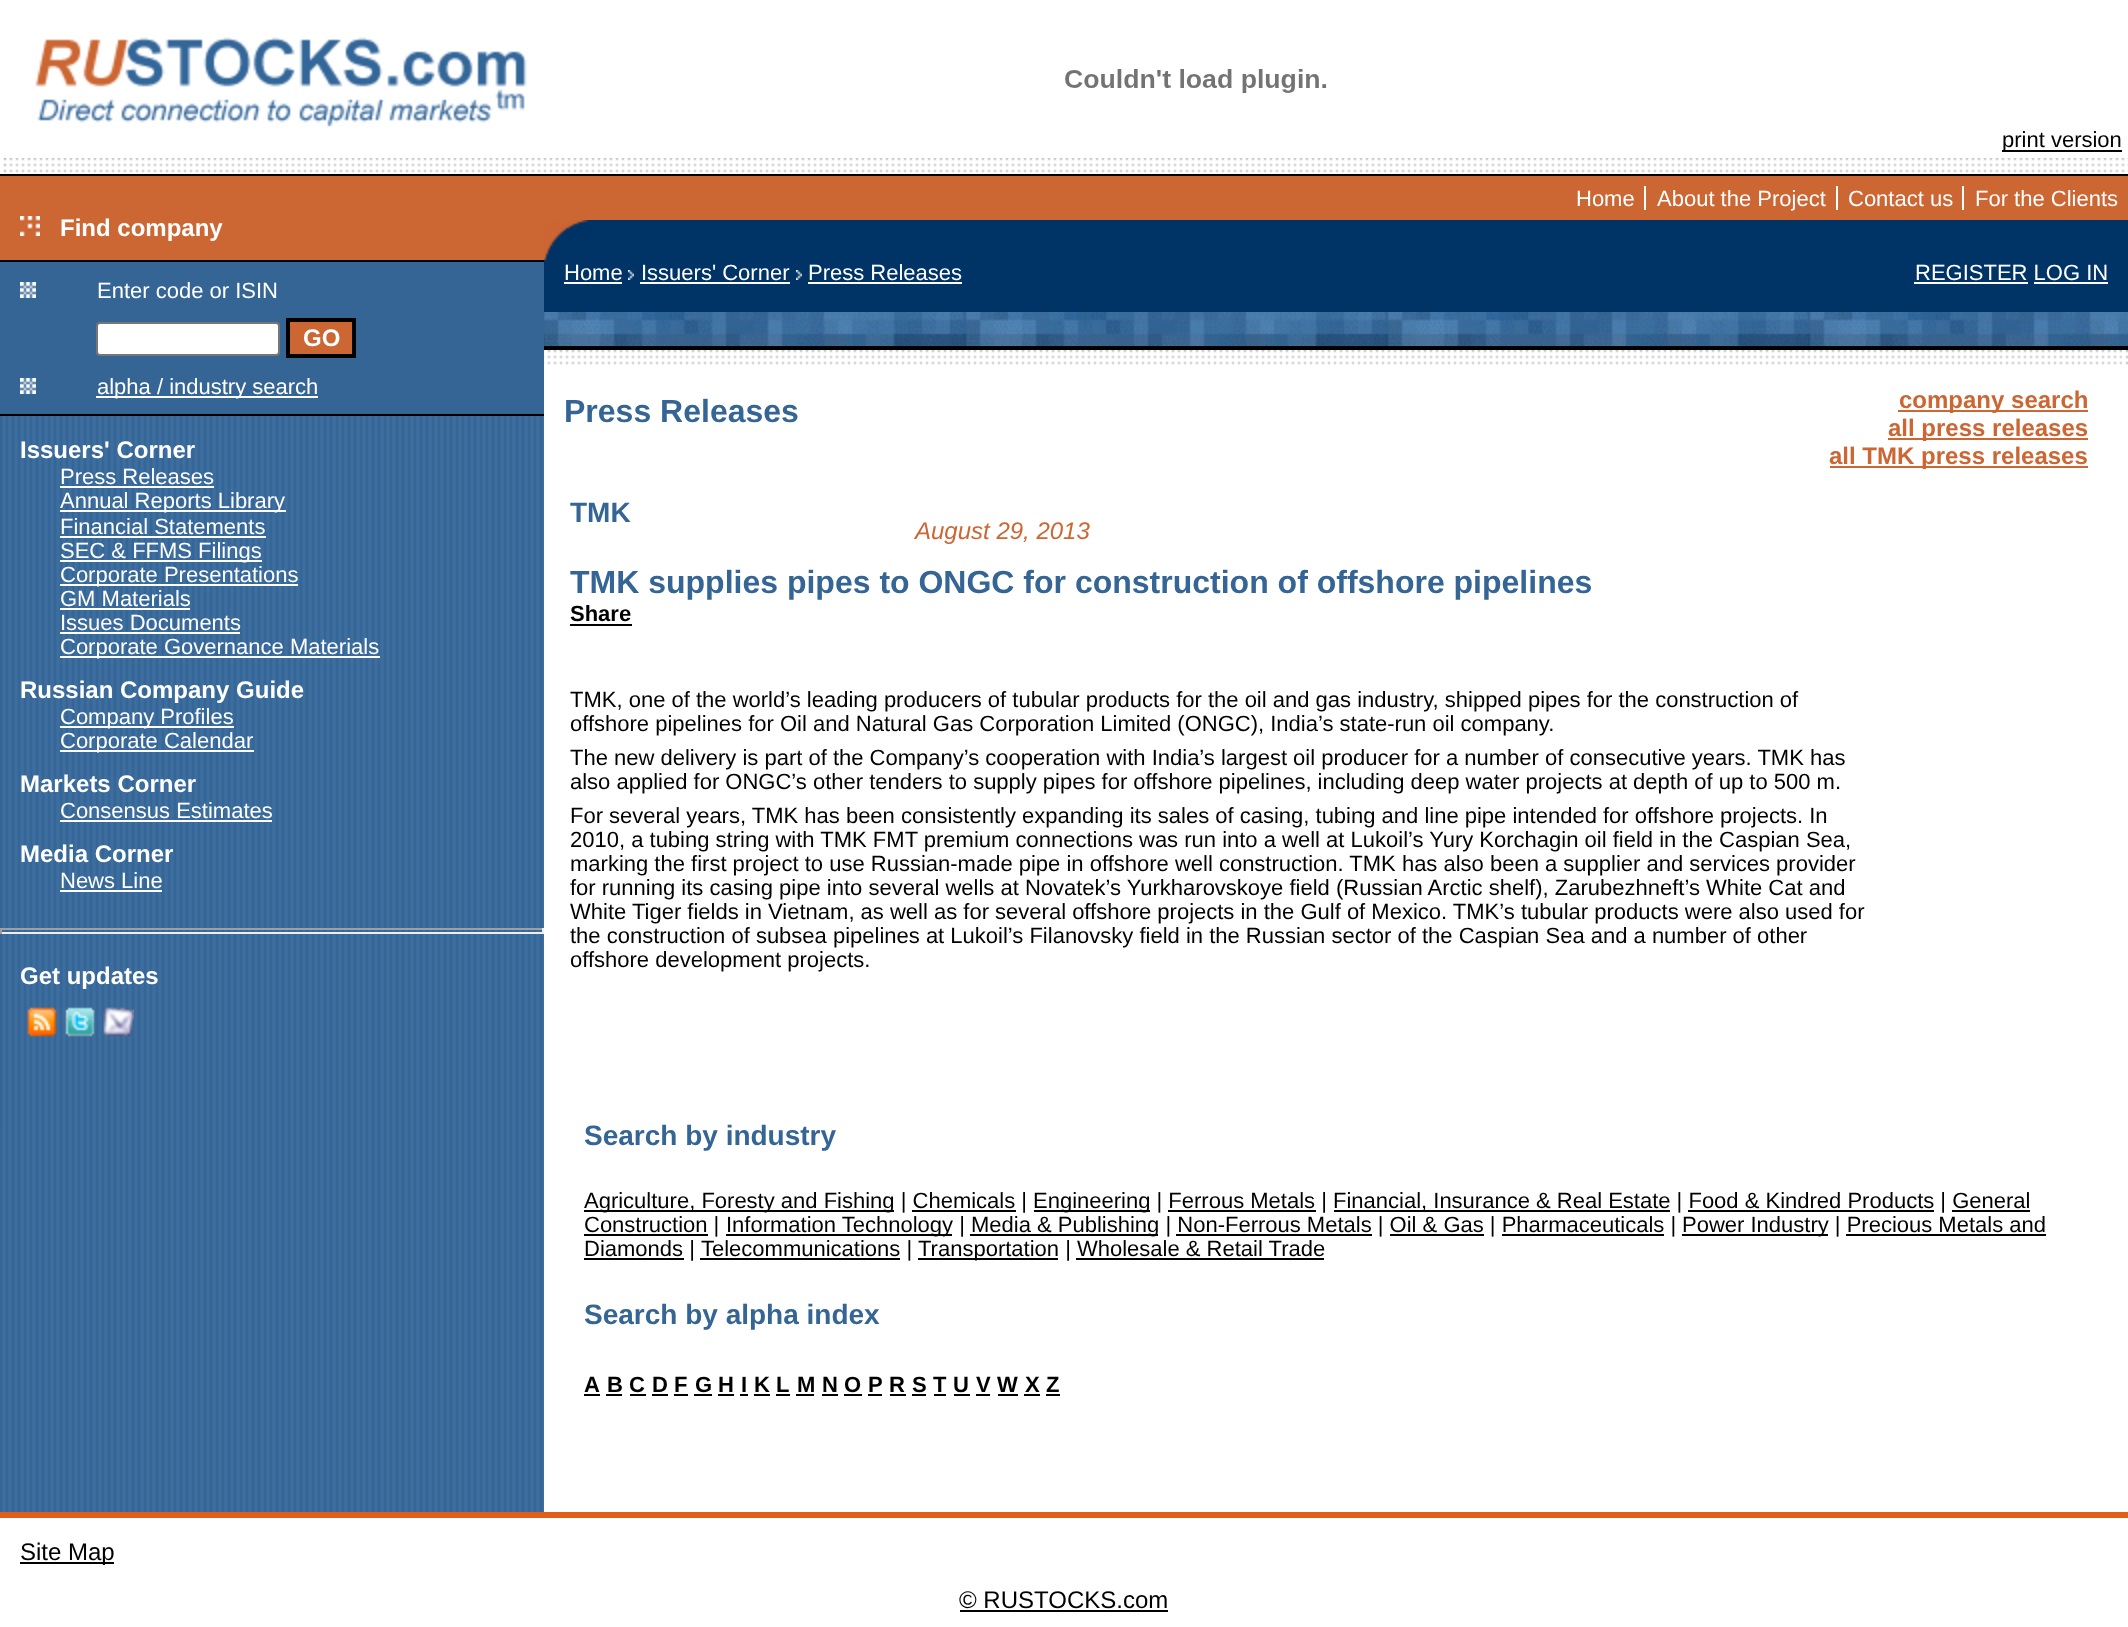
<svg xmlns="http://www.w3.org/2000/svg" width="2128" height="1627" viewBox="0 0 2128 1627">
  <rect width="100%" height="100%" fill="#ffffff"/>
  <image x="35" y="37" width="492" height="90" href="img1.png"/>
  <image x="1065" y="69" width="262" height="24" href="img2.png"/>
  <rect x="2002" y="150" width="120" height="2" fill="#000000"/>
  <text x="2002" y="147" font-family="Liberation Sans" font-size="22" fill="#000000">print version</text>
  <image x="6" y="158" width="2122" height="15" href="img3.png"/>
  <image x="0" y="158" width="6" height="15" href="img4.png"/>
  <rect x="0" y="174" width="2128" height="2" fill="#000000"/>
  <rect x="544" y="176" width="1584" height="44" fill="#cc6633"/>
  <text x="1576" y="206" font-family="Liberation Sans" font-size="22" fill="#ffffff">Home</text>
  <rect x="1644" y="186" width="2" height="24" fill="#ffffff"/>
  <text x="1657" y="206" font-family="Liberation Sans" font-size="22" fill="#ffffff">About the Project</text>
  <rect x="1836" y="186" width="2" height="24" fill="#ffffff"/>
  <text x="1848" y="206" font-family="Liberation Sans" font-size="22" fill="#ffffff">Contact us</text>
  <rect x="1962" y="186" width="2" height="24" fill="#ffffff"/>
  <text x="1975" y="206" font-family="Liberation Sans" font-size="22" fill="#ffffff">For the Clients</text>
  <rect x="0" y="176" width="544" height="84" fill="#cc6633"/>
  <image x="20" y="216" width="20" height="20" href="img5.png"/>
  <text x="60" y="236" font-family="Liberation Sans" font-size="24" font-weight="bold" fill="#ffffff">Find company</text>
  <rect x="591" y="220" width="1537" height="40" fill="#003366"/>
  <image x="544" y="220" width="47" height="40" href="img6.png"/>
  <image x="0" y="1128" width="544" height="384" href="img7.png"/>
  <rect x="0" y="262" width="544" height="866" fill="#356595"/>
  <rect x="0" y="260" width="544" height="2" fill="#000000"/>
  <image x="20" y="282" width="16" height="16" href="img8.png"/>
  <text x="97" y="298" font-family="Liberation Sans" font-size="22" fill="#ffffff">Enter code or ISIN</text>
  <rect x="97" y="323" width="182" height="32" rx="3" fill="#ffffff" stroke="#767676" stroke-width="2"/>
  <rect x="288" y="320" width="66" height="36" fill="#cc6633" stroke="#000000" stroke-width="4"/>
  <text x="303" y="346" font-family="Liberation Sans" font-size="24" font-weight="bold" fill="#ffffff">GO</text>
  <image x="20" y="378" width="16" height="16" href="img8.png"/>
  <rect x="96" y="396" width="222" height="2" fill="#ffffff"/>
  <text x="97" y="394" font-family="Liberation Sans" font-size="22" fill="#ffffff">alpha / industry search</text>
  <rect x="0" y="414" width="544" height="2" fill="#000000"/>
  <image x="2" y="416" width="542" height="712" href="img9.png"/>
  <text x="20" y="458" font-family="Liberation Sans" font-size="24" font-weight="bold" fill="#ffffff">Issuers' Corner</text>
  <text x="60" y="484" font-family="Liberation Sans" font-size="22" fill="#ffffff">Press Releases</text>
  <rect x="60" y="486" width="154" height="2" fill="#ffffff"/>
  <rect x="60" y="510" width="226" height="2" fill="#ffffff"/>
  <text x="60" y="508" font-family="Liberation Sans" font-size="22" fill="#ffffff">Annual Reports Library</text>
  <text x="60" y="534" font-family="Liberation Sans" font-size="22" fill="#ffffff">Financial Statements</text>
  <rect x="60" y="536" width="206" height="2" fill="#ffffff"/>
  <rect x="60" y="560" width="202" height="2" fill="#ffffff"/>
  <text x="60" y="558" font-family="Liberation Sans" font-size="22" fill="#ffffff">SEC &amp; FFMS Filings</text>
  <rect x="60" y="584" width="238" height="2" fill="#ffffff"/>
  <text x="60" y="582" font-family="Liberation Sans" font-size="22" fill="#ffffff">Corporate Presentations</text>
  <text x="60" y="606" font-family="Liberation Sans" font-size="22" fill="#ffffff">GM Materials</text>
  <rect x="60" y="608" width="130" height="2" fill="#ffffff"/>
  <text x="60" y="630" font-family="Liberation Sans" font-size="22" fill="#ffffff">Issues Documents</text>
  <rect x="60" y="632" width="180" height="2" fill="#ffffff"/>
  <rect x="60" y="656" width="320" height="2" fill="#ffffff"/>
  <text x="60" y="654" font-family="Liberation Sans" font-size="22" fill="#ffffff">Corporate Governance Materials</text>
  <text x="20" y="698" font-family="Liberation Sans" font-size="24" font-weight="bold" fill="#ffffff">Russian Company Guide</text>
  <rect x="60" y="726" width="174" height="2" fill="#ffffff"/>
  <text x="60" y="724" font-family="Liberation Sans" font-size="22" fill="#ffffff">Company Profiles</text>
  <rect x="60" y="750" width="194" height="2" fill="#ffffff"/>
  <text x="60" y="748" font-family="Liberation Sans" font-size="22" fill="#ffffff">Corporate Calendar</text>
  <text x="20" y="792" font-family="Liberation Sans" font-size="24" font-weight="bold" fill="#ffffff">Markets Corner</text>
  <text x="60" y="818" font-family="Liberation Sans" font-size="22" fill="#ffffff">Consensus Estimates</text>
  <rect x="60" y="820" width="212" height="2" fill="#ffffff"/>
  <text x="20" y="862" font-family="Liberation Sans" font-size="24" font-weight="bold" fill="#ffffff">Media Corner</text>
  <text x="60" y="888" font-family="Liberation Sans" font-size="22" fill="#ffffff">News Line</text>
  <rect x="60" y="890" width="102" height="2" fill="#ffffff"/>
  <rect x="0" y="928" width="544" height="2" fill="#9f9f9f"/>
  <rect x="542" y="928" width="2" height="6" fill="#eeeeee"/>
  <rect x="0" y="932" width="544" height="2" fill="#eeeeee"/>
  <rect x="0" y="928" width="2" height="6" fill="#9f9f9f"/>
  <text x="20" y="984" font-family="Liberation Sans" font-size="24" font-weight="bold" fill="#ffffff">Get updates</text>
  <image x="27" y="1007" width="30" height="30" href="img10.png"/>
  <image x="65" y="1007" width="30" height="30" href="img11.png"/>
  <image x="103" y="1007" width="31" height="30" href="img12.png"/>
  <rect x="544" y="260" width="1584" height="52" fill="#003366"/>
  <text x="564" y="280" font-family="Liberation Sans" font-size="22" fill="#ffffff">Home</text>
  <rect x="564" y="282" width="58" height="2" fill="#ffffff"/>
  <image x="628" y="270" width="6" height="10" href="img13.png"/>
  <text x="641" y="280" font-family="Liberation Sans" font-size="22" fill="#ffffff">Issuers' Corner</text>
  <rect x="640" y="282" width="150" height="2" fill="#ffffff"/>
  <image x="796" y="270" width="6" height="10" href="img13.png"/>
  <text x="808" y="280" font-family="Liberation Sans" font-size="22" fill="#ffffff">Press Releases</text>
  <rect x="808" y="282" width="154" height="2" fill="#ffffff"/>
  <text x="1915" y="280" font-family="Liberation Sans" font-size="22" fill="#ffffff">REGISTER LOG IN</text>
  <rect x="1914" y="282" width="114" height="2" fill="#ffffff"/>
  <rect x="2034" y="282" width="74" height="2" fill="#ffffff"/>
  <image x="544" y="312" width="1584" height="34" href="img14.png"/>
  <rect x="544" y="346" width="1584" height="4" fill="#000000"/>
  <image x="544" y="350" width="1578" height="15" href="img15.png"/>
  <image x="2122" y="350" width="6" height="15" href="img4.png"/>
  <text x="564" y="422" font-family="Liberation Sans" font-size="32" font-weight="bold" fill="#356595">Press Releases</text>
  <rect x="1898" y="410" width="190" height="2" fill="#cc6633"/>
  <text x="1899" y="408" font-family="Liberation Sans" font-size="24" font-weight="bold" fill="#cc6633">company search</text>
  <rect x="1888" y="438" width="200" height="2" fill="#cc6633"/>
  <text x="1888" y="436" font-family="Liberation Sans" font-size="24" font-weight="bold" fill="#cc6633">all press releases</text>
  <rect x="1830" y="466" width="258" height="2" fill="#cc6633"/>
  <text x="1829" y="464" font-family="Liberation Sans" font-size="24" font-weight="bold" fill="#cc6633">all TMK press releases</text>
  <text x="570" y="522" font-family="Liberation Sans" font-size="28" font-weight="bold" fill="#356595">TMK</text>
  <text x="915" y="539" font-family="Liberation Sans" font-size="24" font-style="italic" fill="#cc6633">August 29, 2013</text>
  <text x="570" y="593" font-family="Liberation Sans" font-size="32" font-weight="bold" fill="#356595">TMK supplies pipes to ONGC for construction of offshore pipelines</text>
  <text x="570" y="621" font-family="Liberation Sans" font-size="22" font-weight="bold" fill="#000000">Share</text>
  <rect x="570" y="624" width="62" height="2" fill="#000000"/>
  <text x="570" y="707" font-family="Liberation Sans" font-size="22" fill="#000000">TMK, one of the world’s leading producers of tubular products for the oil and gas industry, shipped pipes for the construction of</text>
  <text x="570" y="731" font-family="Liberation Sans" font-size="22" fill="#000000">offshore pipelines for Oil and Natural Gas Corporation Limited (ONGC), India’s state-run oil company.</text>
  <text x="570" y="765" font-family="Liberation Sans" font-size="22" fill="#000000">The new delivery is part of the Company’s cooperation with India’s largest oil producer for a number of consecutive years. TMK has</text>
  <text x="570" y="789" font-family="Liberation Sans" font-size="22" fill="#000000">also applied for ONGC’s other tenders to supply pipes for offshore pipelines, including deep water projects at depth of up to 500 m.</text>
  <text x="570" y="823" font-family="Liberation Sans" font-size="22" fill="#000000">For several years, TMK has been consistently expanding its sales of casing, tubing and line pipe intended for offshore projects. In</text>
  <text x="570" y="847" font-family="Liberation Sans" font-size="22" fill="#000000">2010, a tubing string with TMK FMT premium connections was run into a well at Lukoil’s Yury Korchagin oil field in the Caspian Sea,</text>
  <text x="570" y="871" font-family="Liberation Sans" font-size="22" fill="#000000">marking the first project to use Russian-made pipe in offshore well construction. TMK has also been a supplier and services provider</text>
  <text x="570" y="895" font-family="Liberation Sans" font-size="22" fill="#000000">for running its casing pipe into several wells at Novatek’s Yurkharovskoye field (Russian Arctic shelf), Zarubezhneft’s White Cat and</text>
  <text x="570" y="919" font-family="Liberation Sans" font-size="22" fill="#000000">White Tiger fields in Vietnam, as well as for several offshore projects in the Gulf of Mexico. TMK’s tubular products were also used for</text>
  <text x="570" y="943" font-family="Liberation Sans" font-size="22" fill="#000000">the construction of subsea pipelines at Lukoil’s Filanovsky field in the Russian sector of the Caspian Sea and a number of other</text>
  <text x="570" y="967" font-family="Liberation Sans" font-size="22" fill="#000000">offshore development projects.</text>
  <text x="584" y="1145" font-family="Liberation Sans" font-size="28" font-weight="bold" fill="#356595">Search by industry</text>
  <rect x="584" y="1210" width="310" height="2" fill="#000000"/>
  <text x="584" y="1208" font-family="Liberation Sans" font-size="22" fill="#000000">Agriculture, Foresty and Fishing | Chemicals |</text>
  <rect x="1034" y="1210" width="116" height="2" fill="#000000"/>
  <text x="1033" y="1208" font-family="Liberation Sans" font-size="22" fill="#000000">Engineering | Ferrous Metals |</text>
  <rect x="1334" y="1210" width="336" height="2" fill="#000000"/>
  <text x="1333" y="1208" font-family="Liberation Sans" font-size="22" fill="#000000">Financial, Insurance &amp; Real Estate | Food &amp; Kindred Products | General</text>
  <rect x="912" y="1210" width="104" height="2" fill="#000000"/>
  <rect x="1168" y="1210" width="148" height="2" fill="#000000"/>
  <rect x="1688" y="1210" width="246" height="2" fill="#000000"/>
  <rect x="584" y="1234" width="124" height="2" fill="#000000"/>
  <text x="584" y="1232" font-family="Liberation Sans" font-size="22" fill="#000000">Construction |</text>
  <rect x="1952" y="1210" width="78" height="2" fill="#000000"/>
  <rect x="726" y="1234" width="226" height="2" fill="#000000"/>
  <text x="726" y="1232" font-family="Liberation Sans" font-size="22" fill="#000000">Information Technology |</text>
  <rect x="970" y="1234" width="188" height="2" fill="#000000"/>
  <text x="971" y="1232" font-family="Liberation Sans" font-size="22" fill="#000000">Media &amp; Publishing | Non-Ferrous Metals | Oil &amp; Gas | Pharmaceuticals |</text>
  <rect x="1682" y="1234" width="146" height="2" fill="#000000"/>
  <text x="1682" y="1232" font-family="Liberation Sans" font-size="22" fill="#000000">Power Industry | Precious Metals and</text>
  <rect x="1176" y="1234" width="196" height="2" fill="#000000"/>
  <rect x="1390" y="1234" width="94" height="2" fill="#000000"/>
  <rect x="1502" y="1234" width="162" height="2" fill="#000000"/>
  <rect x="584" y="1258" width="100" height="2" fill="#000000"/>
  <text x="584" y="1256" font-family="Liberation Sans" font-size="22" fill="#000000">Diamonds |</text>
  <rect x="1846" y="1234" width="200" height="2" fill="#000000"/>
  <rect x="700" y="1258" width="200" height="2" fill="#000000"/>
  <text x="701" y="1256" font-family="Liberation Sans" font-size="22" fill="#000000">Telecommunications |</text>
  <rect x="918" y="1258" width="140" height="2" fill="#000000"/>
  <text x="918" y="1256" font-family="Liberation Sans" font-size="22" fill="#000000">Transportation | Wholesale &amp; Retail Trade</text>
  <rect x="1076" y="1258" width="248" height="2" fill="#000000"/>
  <text x="584" y="1324" font-family="Liberation Sans" font-size="28" font-weight="bold" fill="#356595">Search by alpha index</text>
  <text x="584" y="1392" font-family="Liberation Sans" font-size="22" font-weight="bold" fill="#000000">A</text>
  <rect x="584" y="1394" width="16" height="2" fill="#000000"/>
  <text x="607" y="1392" font-family="Liberation Sans" font-size="22" font-weight="bold" fill="#000000">B</text>
  <rect x="606" y="1394" width="16" height="2" fill="#000000"/>
  <text x="629" y="1392" font-family="Liberation Sans" font-size="22" font-weight="bold" fill="#000000">C</text>
  <rect x="630" y="1394" width="16" height="2" fill="#000000"/>
  <text x="652" y="1392" font-family="Liberation Sans" font-size="22" font-weight="bold" fill="#000000">D</text>
  <rect x="652" y="1394" width="16" height="2" fill="#000000"/>
  <text x="674" y="1392" font-family="Liberation Sans" font-size="22" font-weight="bold" fill="#000000">F</text>
  <rect x="674" y="1394" width="14" height="2" fill="#000000"/>
  <text x="695" y="1392" font-family="Liberation Sans" font-size="22" font-weight="bold" fill="#000000">G</text>
  <rect x="694" y="1394" width="18" height="2" fill="#000000"/>
  <text x="718" y="1392" font-family="Liberation Sans" font-size="22" font-weight="bold" fill="#000000">H</text>
  <rect x="718" y="1394" width="16" height="2" fill="#000000"/>
  <text x="741" y="1392" font-family="Liberation Sans" font-size="22" font-weight="bold" fill="#000000">I</text>
  <rect x="740" y="1394" width="8" height="2" fill="#000000"/>
  <text x="754" y="1392" font-family="Liberation Sans" font-size="22" font-weight="bold" fill="#000000">K</text>
  <rect x="754" y="1394" width="16" height="2" fill="#000000"/>
  <text x="776" y="1392" font-family="Liberation Sans" font-size="22" font-weight="bold" fill="#000000">L</text>
  <rect x="776" y="1394" width="14" height="2" fill="#000000"/>
  <text x="797" y="1392" font-family="Liberation Sans" font-size="22" font-weight="bold" fill="#000000">M</text>
  <rect x="796" y="1394" width="18" height="2" fill="#000000"/>
  <text x="822" y="1392" font-family="Liberation Sans" font-size="22" font-weight="bold" fill="#000000">N</text>
  <rect x="822" y="1394" width="16" height="2" fill="#000000"/>
  <text x="844" y="1392" font-family="Liberation Sans" font-size="22" font-weight="bold" fill="#000000">O</text>
  <rect x="844" y="1394" width="18" height="2" fill="#000000"/>
  <text x="868" y="1392" font-family="Liberation Sans" font-size="22" font-weight="bold" fill="#000000">P</text>
  <rect x="868" y="1394" width="14" height="2" fill="#000000"/>
  <text x="889" y="1392" font-family="Liberation Sans" font-size="22" font-weight="bold" fill="#000000">R</text>
  <rect x="890" y="1394" width="16" height="2" fill="#000000"/>
  <text x="912" y="1392" font-family="Liberation Sans" font-size="22" font-weight="bold" fill="#000000">S</text>
  <rect x="912" y="1394" width="14" height="2" fill="#000000"/>
  <text x="933" y="1392" font-family="Liberation Sans" font-size="22" font-weight="bold" fill="#000000">T</text>
  <rect x="934" y="1394" width="12" height="2" fill="#000000"/>
  <text x="953" y="1392" font-family="Liberation Sans" font-size="22" font-weight="bold" fill="#000000">U</text>
  <rect x="954" y="1394" width="16" height="2" fill="#000000"/>
  <text x="976" y="1392" font-family="Liberation Sans" font-size="22" font-weight="bold" fill="#000000">V</text>
  <rect x="976" y="1394" width="14" height="2" fill="#000000"/>
  <text x="997" y="1392" font-family="Liberation Sans" font-size="22" font-weight="bold" fill="#000000">W</text>
  <rect x="998" y="1394" width="20" height="2" fill="#000000"/>
  <text x="1025" y="1392" font-family="Liberation Sans" font-size="22" font-weight="bold" fill="#000000">X</text>
  <rect x="1024" y="1394" width="16" height="2" fill="#000000"/>
  <text x="1046" y="1392" font-family="Liberation Sans" font-size="22" font-weight="bold" fill="#000000">Z</text>
  <rect x="1046" y="1394" width="14" height="2" fill="#000000"/>
  <rect x="0" y="1512" width="2128" height="6" fill="#e25d1a"/>
  <rect x="20" y="1562" width="94" height="2" fill="#000000"/>
  <text x="20" y="1560" font-family="Liberation Sans" font-size="24" fill="#000000">Site Map</text>
  <text x="959" y="1608" font-family="Liberation Sans" font-size="24" fill="#000000">© RUSTOCKS.com</text>
  <rect x="960" y="1610" width="208" height="2" fill="#000000"/>
</svg>
